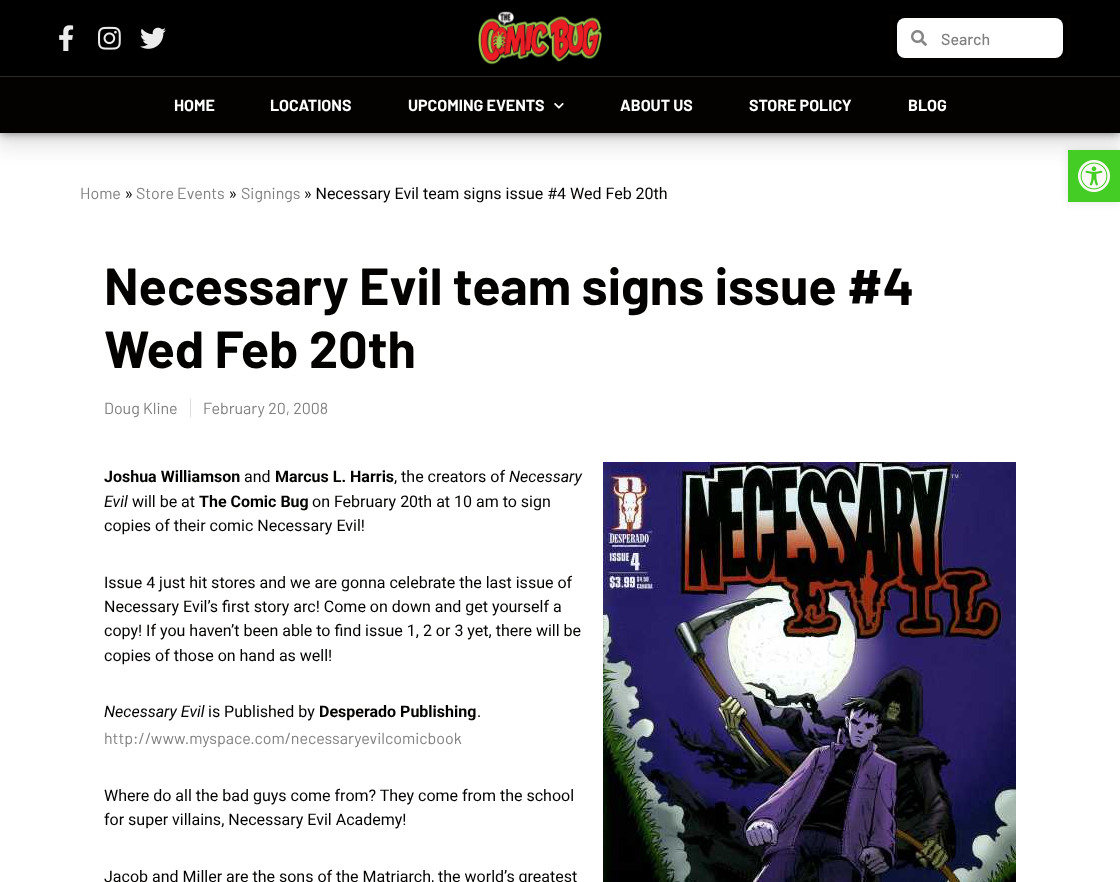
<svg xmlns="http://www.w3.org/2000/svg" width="1120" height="882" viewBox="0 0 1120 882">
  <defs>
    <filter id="blur1" x="-50%" y="-200%" width="200%" height="500%"><feGaussianBlur stdDeviation="10"/></filter>
    <filter id="blur2" x="-50%" y="-200%" width="200%" height="500%"><feGaussianBlur stdDeviation="5"/></filter>
  </defs>
  <rect width="100%" height="100%" fill="#ffffff"/>
  <rect x="-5" y="4" width="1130" height="143" fill="#000000" fill-opacity="0.1" filter="url(#blur1)"/>
  <rect x="0" y="0" width="1120" height="133" fill="#000000"/>
  <image x="59" y="25" width="15" height="26" href="img1.png"/>
  <image x="98" y="26" width="23" height="24" href="img2.png"/>
  <image x="140" y="27" width="26" height="22" href="img3.png"/>
  <image x="478" y="11" width="124" height="54" href="img4.png"/>
  <path d="M891.5 16.5H1068.5V59.5H891.5Z" fill="none" stroke="#030200" stroke-width="3"/>
  <rect x="897" y="18" width="166" height="40" rx="8" fill="#ffffff"/>
  <image x="911" y="30" width="16" height="16" href="img5.png"/>
  <text x="941" y="45" font-family="Barlow" font-size="16" font-weight="500" fill="#808080">Search</text>
  <rect x="0" y="76" width="1120" height="57" rx="1" fill="#000000" fill-opacity="0.5" filter="url(#blur2)"/>
  <path d="M0 77H1120V132C1120 132.5 1119.5 133 1119 133H0Z" fill="#030200"/>
  <rect x="0" y="76" width="1120" height="1" fill="#2b2b2a"/>
  <text x="174" y="111" font-family="Barlow" font-size="16" font-weight="bold" fill="#ffffff">HOME</text>
  <text x="270" y="111" font-family="Barlow" font-size="16" font-weight="bold" fill="#ffffff">LOCATIONS</text>
  <text x="408" y="111" font-family="Barlow" font-size="16" font-weight="bold" fill="#ffffff">UPCOMING EVENTS</text>
  <image x="554" y="103" width="10" height="6" href="img6.png"/>
  <text x="620" y="111" font-family="Barlow" font-size="16" font-weight="bold" fill="#ffffff">ABOUT US</text>
  <text x="749" y="111" font-family="Barlow" font-size="16" font-weight="bold" fill="#ffffff">STORE POLICY</text>
  <text x="908" y="111" font-family="Barlow" font-size="16" font-weight="bold" fill="#ffffff">BLOG</text>
  <rect x="1068" y="150" width="52" height="52" fill="#000000" fill-opacity="0.1" filter="url(#blur2)"/>
  <rect x="1068" y="150" width="52" height="52" fill="#44ce25"/>
  <image x="1078" y="160" width="32" height="32" href="img7.png"/>
  <text x="80" y="199" font-family="Barlow" font-size="16" fill="#808080">Home</text>
  <text x="125" y="199" font-family="Roboto" font-size="16" fill="#030200">»</text>
  <text x="136" y="199" font-family="Barlow" font-size="16" fill="#808080">Store Events</text>
  <text x="229" y="199" font-family="Roboto" font-size="16" fill="#030200">»</text>
  <text x="241" y="199" font-family="Barlow" font-size="16" fill="#808080">Signings</text>
  <text x="304" y="199" font-family="Roboto" font-size="16" fill="#030200">» Necessary Evil team signs issue #4 Wed Feb 20th</text>
  <text x="104" y="305" font-family="Barlow" font-size="52" font-weight="bold" fill="#030200">Necessary Evil team signs issue #4</text>
  <text x="104" y="368" font-family="Barlow" font-size="52" font-weight="bold" fill="#030200">Wed Feb 20th</text>
  <text x="104" y="414" font-family="Barlow" font-size="16" fill="#808080">Doug Kline</text>
  <rect x="190" y="399" width="1" height="18" fill="#dddddd"/>
  <text x="203" y="414" font-family="Barlow" font-size="16" fill="#808080">February 20, 2008</text>
  <text x="104" y="482" font-family="Roboto" font-size="16" font-weight="bold" fill="#030200">Joshua Williamson</text>
  <text x="244" y="482" font-family="Roboto" font-size="16" fill="#030200">and</text>
  <text x="275" y="482" font-family="Roboto" font-size="16" font-weight="bold" fill="#030200">Marcus L. Harris</text>
  <text x="394" y="482" font-family="Roboto" font-size="16" fill="#030200">, the creators of</text>
  <text x="509" y="482" font-family="Roboto" font-size="16" font-style="italic" fill="#030200">Necessary</text>
  <image x="603" y="462" width="413" height="420" href="img8.png"/>
  <text x="104" y="507" font-family="Roboto" font-size="16" font-style="italic" fill="#030200">Evil</text>
  <text x="132" y="507" font-family="Roboto" font-size="16" fill="#030200">will be at</text>
  <text x="199" y="507" font-family="Roboto" font-size="16" font-weight="bold" fill="#030200">The Comic Bug</text>
  <text x="312" y="507" font-family="Roboto" font-size="16" fill="#030200">on February 20th at 10 am to sign</text>
  <text x="104" y="531" font-family="Roboto" font-size="16" fill="#030200">copies of their comic Necessary Evil!</text>
  <text x="104" y="588" font-family="Roboto" font-size="16" fill="#030200">Issue 4 just hit stores and we are gonna celebrate the last issue of</text>
  <text x="104" y="612" font-family="Roboto" font-size="16" fill="#030200">Necessary Evil’s first story arc! Come on down and get yourself a</text>
  <text x="104" y="636" font-family="Roboto" font-size="16" fill="#030200">copy! If you haven’t been able to find issue 1, 2 or 3 yet, there will be</text>
  <text x="104" y="661" font-family="Roboto" font-size="16" fill="#030200">copies of those on hand as well!</text>
  <text x="104" y="717" font-family="Roboto" font-size="16" font-style="italic" fill="#030200">Necessary Evil</text>
  <text x="208" y="717" font-family="Roboto" font-size="16" fill="#030200">is Published by</text>
  <text x="319" y="717" font-family="Roboto" font-size="16" font-weight="bold" fill="#030200">Desperado Publishing</text>
  <text x="477" y="717" font-family="Roboto" font-size="16" fill="#030200">.</text>
  <text x="104" y="744" font-family="Barlow" font-size="16" fill="#808080">http://www.myspace.com/necessaryevilcomicbook</text>
  <text x="104" y="801" font-family="Roboto" font-size="16" fill="#030200">Where do all the bad guys come from? They come from the school</text>
  <text x="104" y="825" font-family="Roboto" font-size="16" fill="#030200">for super villains, Necessary Evil Academy!</text>
  <text x="104" y="882" font-family="Roboto" font-size="16" fill="#030200">Jacob and Miller are the sons of the Matriarch, the world’s greatest</text>
</svg>
